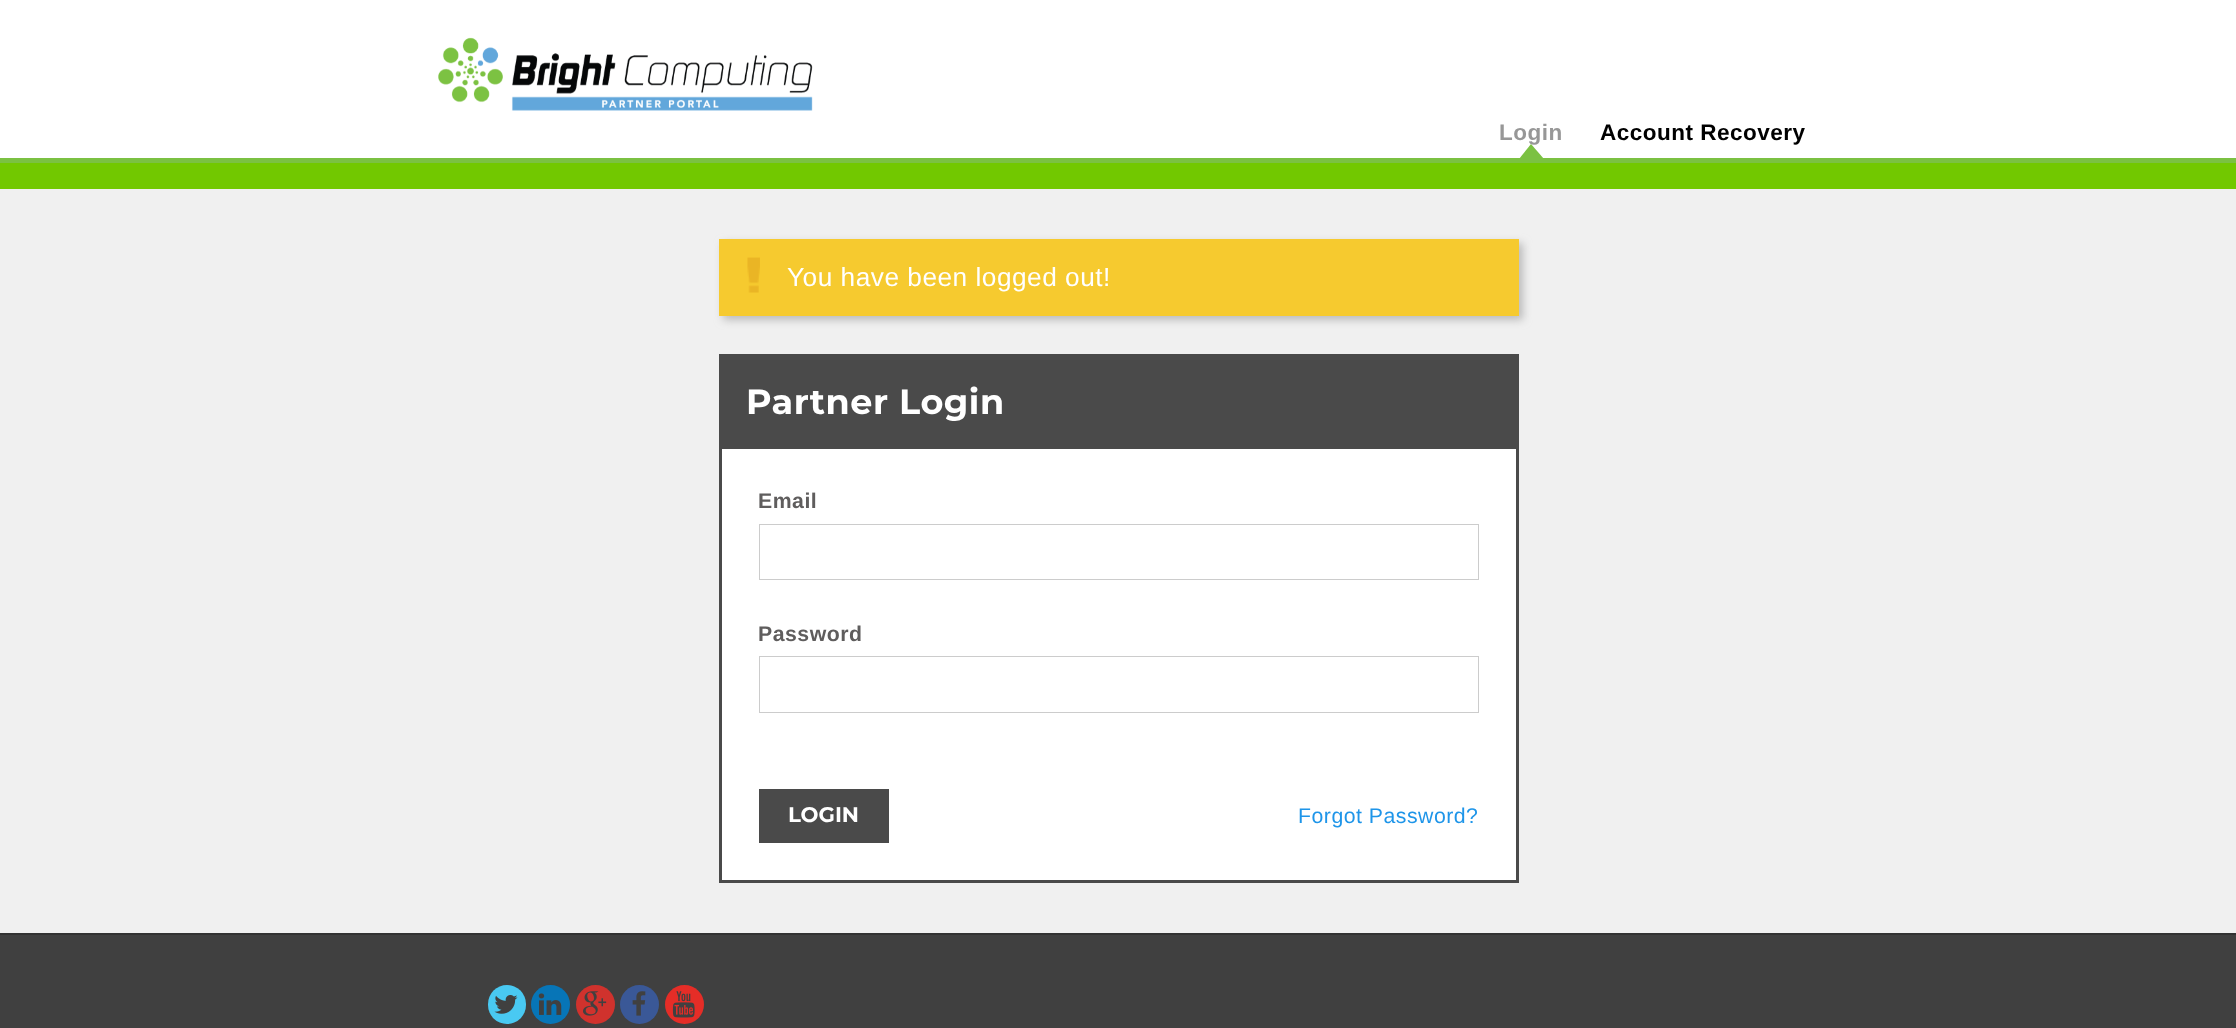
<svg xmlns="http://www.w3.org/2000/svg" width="2236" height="1028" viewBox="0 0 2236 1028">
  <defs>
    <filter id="blur1" x="-50%" y="-200%" width="200%" height="500%"><feGaussianBlur stdDeviation="4"/></filter>
  </defs>
  <rect width="100%" height="100%" fill="#ffffff"/>
  <rect x="0" y="158" width="2236" height="5" fill="#7bc142"/>
  <image x="438" y="37" width="375" height="74" href="img1.png"/>
  <text x="1499" y="140" font-family="Liberation Sans" font-size="22.5" font-weight="bold" letter-spacing="0.5" fill="#979797">Login</text>
  <path d="M1544 159H1519L1531 144Z" fill="#7bc142"/>
  <text x="1600" y="140" font-family="Liberation Sans" font-size="22.5" font-weight="bold" letter-spacing="0.5" fill="#000000">Account Recovery</text>
  <rect x="0" y="163" width="2236" height="26" fill="#72c800"/>
  <rect x="0" y="189" width="2236" height="744" fill="#f0f0f0"/>
  <rect x="723" y="243" width="800" height="77" fill="#bbbbbb" filter="url(#blur1)"/>
  <rect x="719" y="239" width="800" height="77" fill="#f6ca2f"/>
  <image x="747" y="257" width="13" height="36" href="img2.png"/>
  <text x="787" y="286" font-family="Liberation Sans" font-size="26.25" letter-spacing="0.5" fill="#ffffff">You have been logged out!</text>
  <rect x="719" y="354" width="800" height="3" fill="#4a4a4a"/>
  <rect x="1516" y="354" width="3" height="529" fill="#4a4a4a"/>
  <rect x="719" y="880" width="800" height="3" fill="#4a4a4a"/>
  <rect x="719" y="354" width="3" height="529" fill="#4a4a4a"/>
  <rect x="722" y="357" width="794" height="92" fill="#4a4a4a"/>
  <text x="746" y="414" font-family="Montserrat" font-size="35" font-weight="bold" letter-spacing="0.5" fill="#ffffff">Partner Login</text>
  <rect x="722" y="449" width="794" height="431" fill="#ffffff"/>
  <text x="758" y="508" font-family="Liberation Sans" font-size="21.25" font-weight="bold" letter-spacing="0.5" fill="#5f5d5d">Email</text>
  <rect x="759.5" y="524.5" width="719" height="55" fill="none" stroke="#cccccc"/>
  <text x="758" y="641" font-family="Liberation Sans" font-size="21.25" font-weight="bold" letter-spacing="0.5" fill="#5f5d5d">Password</text>
  <rect x="759.5" y="656.5" width="719" height="56" fill="none" stroke="#cccccc"/>
  <rect x="759" y="789" width="130" height="54" fill="#4a4a4a"/>
  <text x="788" y="822" font-family="Montserrat" font-size="21.25" font-weight="bold" fill="#ffffff">LOGIN</text>
  <text x="1298" y="823" font-family="Liberation Sans" font-size="21.25" letter-spacing="0.5" fill="#1e95e9">Forgot Password?</text>
  <rect x="0" y="933" width="2236" height="2" fill="#323232"/>
  <rect x="0" y="935" width="2236" height="93" fill="#404040"/>
  <rect x="488" y="985" width="38" height="39" rx="19" fill="#49c9f2"/>
  <image x="494" y="995" width="24" height="19" href="img3.png"/>
  <circle cx="550.5" cy="1004.5" r="19.5" fill="#0775b7"/>
  <image x="538" y="993" width="24" height="22" href="img4.png"/>
  <circle cx="595.5" cy="1004.5" r="19.5" fill="#d0322d"/>
  <image x="583" y="991" width="24" height="25" href="img5.png"/>
  <circle cx="639.5" cy="1004.5" r="19.5" fill="#3a5897"/>
  <image x="632" y="991" width="14" height="25" href="img6.png"/>
  <circle cx="684.5" cy="1004.5" r="19.5" fill="#e52d27"/>
  <image x="672" y="991" width="23" height="27" href="img7.png"/>
</svg>
